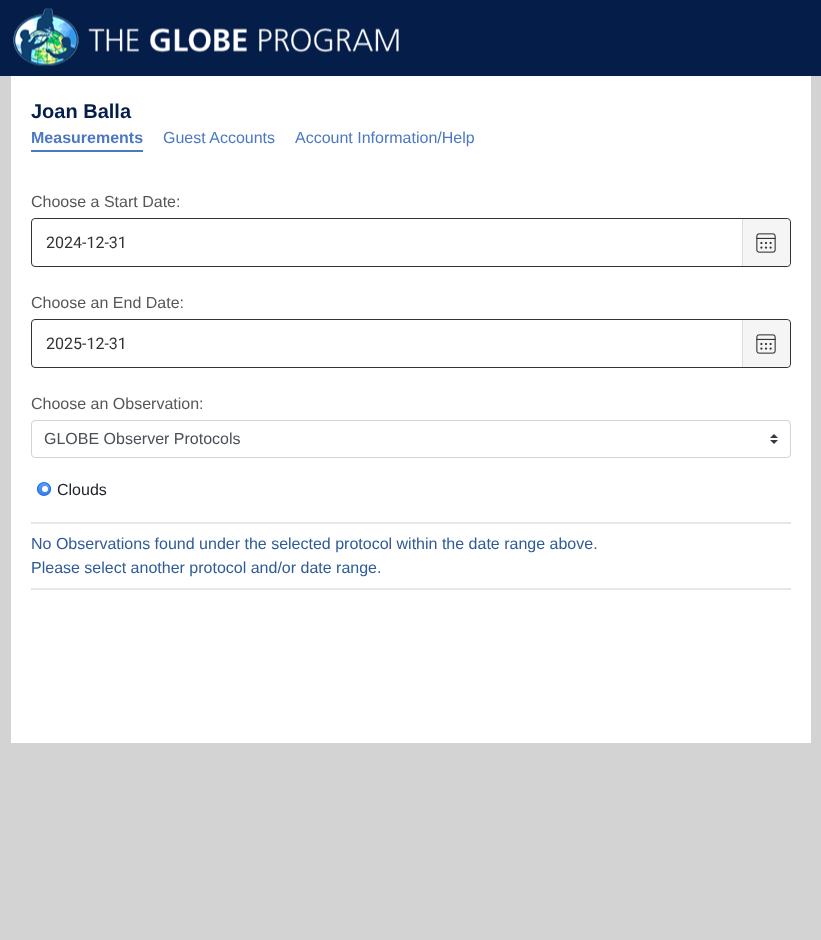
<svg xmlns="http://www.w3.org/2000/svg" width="821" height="940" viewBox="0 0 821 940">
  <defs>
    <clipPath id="clip1"><rect x="37" y="482" width="14" height="14" rx="7"/></clipPath>
    <linearGradient id="g1" gradientUnits="userSpaceOnUse" x1="44" y1="483" x2="44" y2="495"><stop offset="0" stop-color="#609bfb"/><stop offset="1" stop-color="#3a80e9"/></linearGradient>
  </defs>
  <rect width="100%" height="100%" fill="#d3d3d3"/>
  <rect x="0" y="0" width="821" height="76" fill="#041e49"/>
  <image x="13" y="8" width="386" height="58" href="img1.png"/>
  <rect x="11" y="76" width="800" height="667" fill="#ffffff"/>
  <text x="31" y="118" font-family="Liberation Sans" font-size="20" font-weight="bold" fill="#041e49">Joan Balla</text>
  <text x="31" y="143" font-family="Liberation Sans" font-size="16" font-weight="bold" fill="#4c78c1">Measurements</text>
  <rect x="31" y="150" width="112" height="2" fill="#4c78c1"/>
  <text x="163" y="143" font-family="Liberation Sans" font-size="16" fill="#4c78c1">Guest Accounts</text>
  <text x="295" y="143" font-family="Liberation Sans" font-size="16" fill="#4c78c1">Account Information/Help</text>
  <text x="31" y="207" font-family="Liberation Sans" font-size="16" fill="#56575a">Choose a Start Date:</text>
  <rect x="31.5" y="218.5" width="759" height="48" rx="3.5" fill="none" stroke="#333333"/>
  <text x="46" y="248" font-family="Roboto" font-size="16" fill="#333333">2024-12-31</text>
  <path d="M742 219H786C788 219 790 221 790 223V262C790 264 788 266 786 266H742Z" fill="#f5f5f5"/>
  <rect x="742" y="219" width="1" height="47" fill="#dddddd"/>
  <image x="756" y="233" width="20" height="20" href="img2.png"/>
  <text x="31" y="308" font-family="Liberation Sans" font-size="16" fill="#56575a">Choose an End Date:</text>
  <rect x="31.5" y="319.5" width="759" height="48" rx="3.5" fill="none" stroke="#333333"/>
  <text x="46" y="349" font-family="Roboto" font-size="16" fill="#333333">2025-12-31</text>
  <path d="M742 320H786C788 320 790 322 790 324V363C790 365 788 367 786 367H742Z" fill="#f5f5f5"/>
  <rect x="742" y="320" width="1" height="47" fill="#dddddd"/>
  <image x="756" y="334" width="20" height="20" href="img2.png"/>
  <text x="31" y="409" font-family="Liberation Sans" font-size="16" fill="#56575a">Choose an Observation:</text>
  <image x="770" y="434" width="8" height="10" href="img3.png"/>
  <rect x="31.5" y="420.5" width="759" height="37" rx="3.5" fill="none" stroke="#ced4da"/>
  <text x="44" y="444" font-family="Liberation Sans" font-size="16" fill="#495057">GLOBE Observer Protocols</text>
  <g clip-path="url(#clip1)">
    <rect x="37" y="483" width="14" height="12" fill="url(#g1)"/>
  </g>
  <circle cx="44" cy="489" r="6.5" fill="none" stroke="#1a6be6"/>
  <text x="57" y="495" font-family="Liberation Sans" font-size="16" fill="#212529">Clouds</text>
  <circle cx="45" cy="489" r="3" fill="#ffffff"/>
  <rect x="31" y="522" width="760" height="2" fill="#e8e7e7"/>
  <rect x="31" y="588" width="760" height="2" fill="#e8e7e7"/>
  <text x="31" y="549" font-family="Liberation Sans" font-size="16" fill="#2f5c96">No Observations found under the selected protocol within the date range above.</text>
  <text x="31" y="573" font-family="Liberation Sans" font-size="16" fill="#2f5c96">Please select another protocol and/or date range.</text>
</svg>
